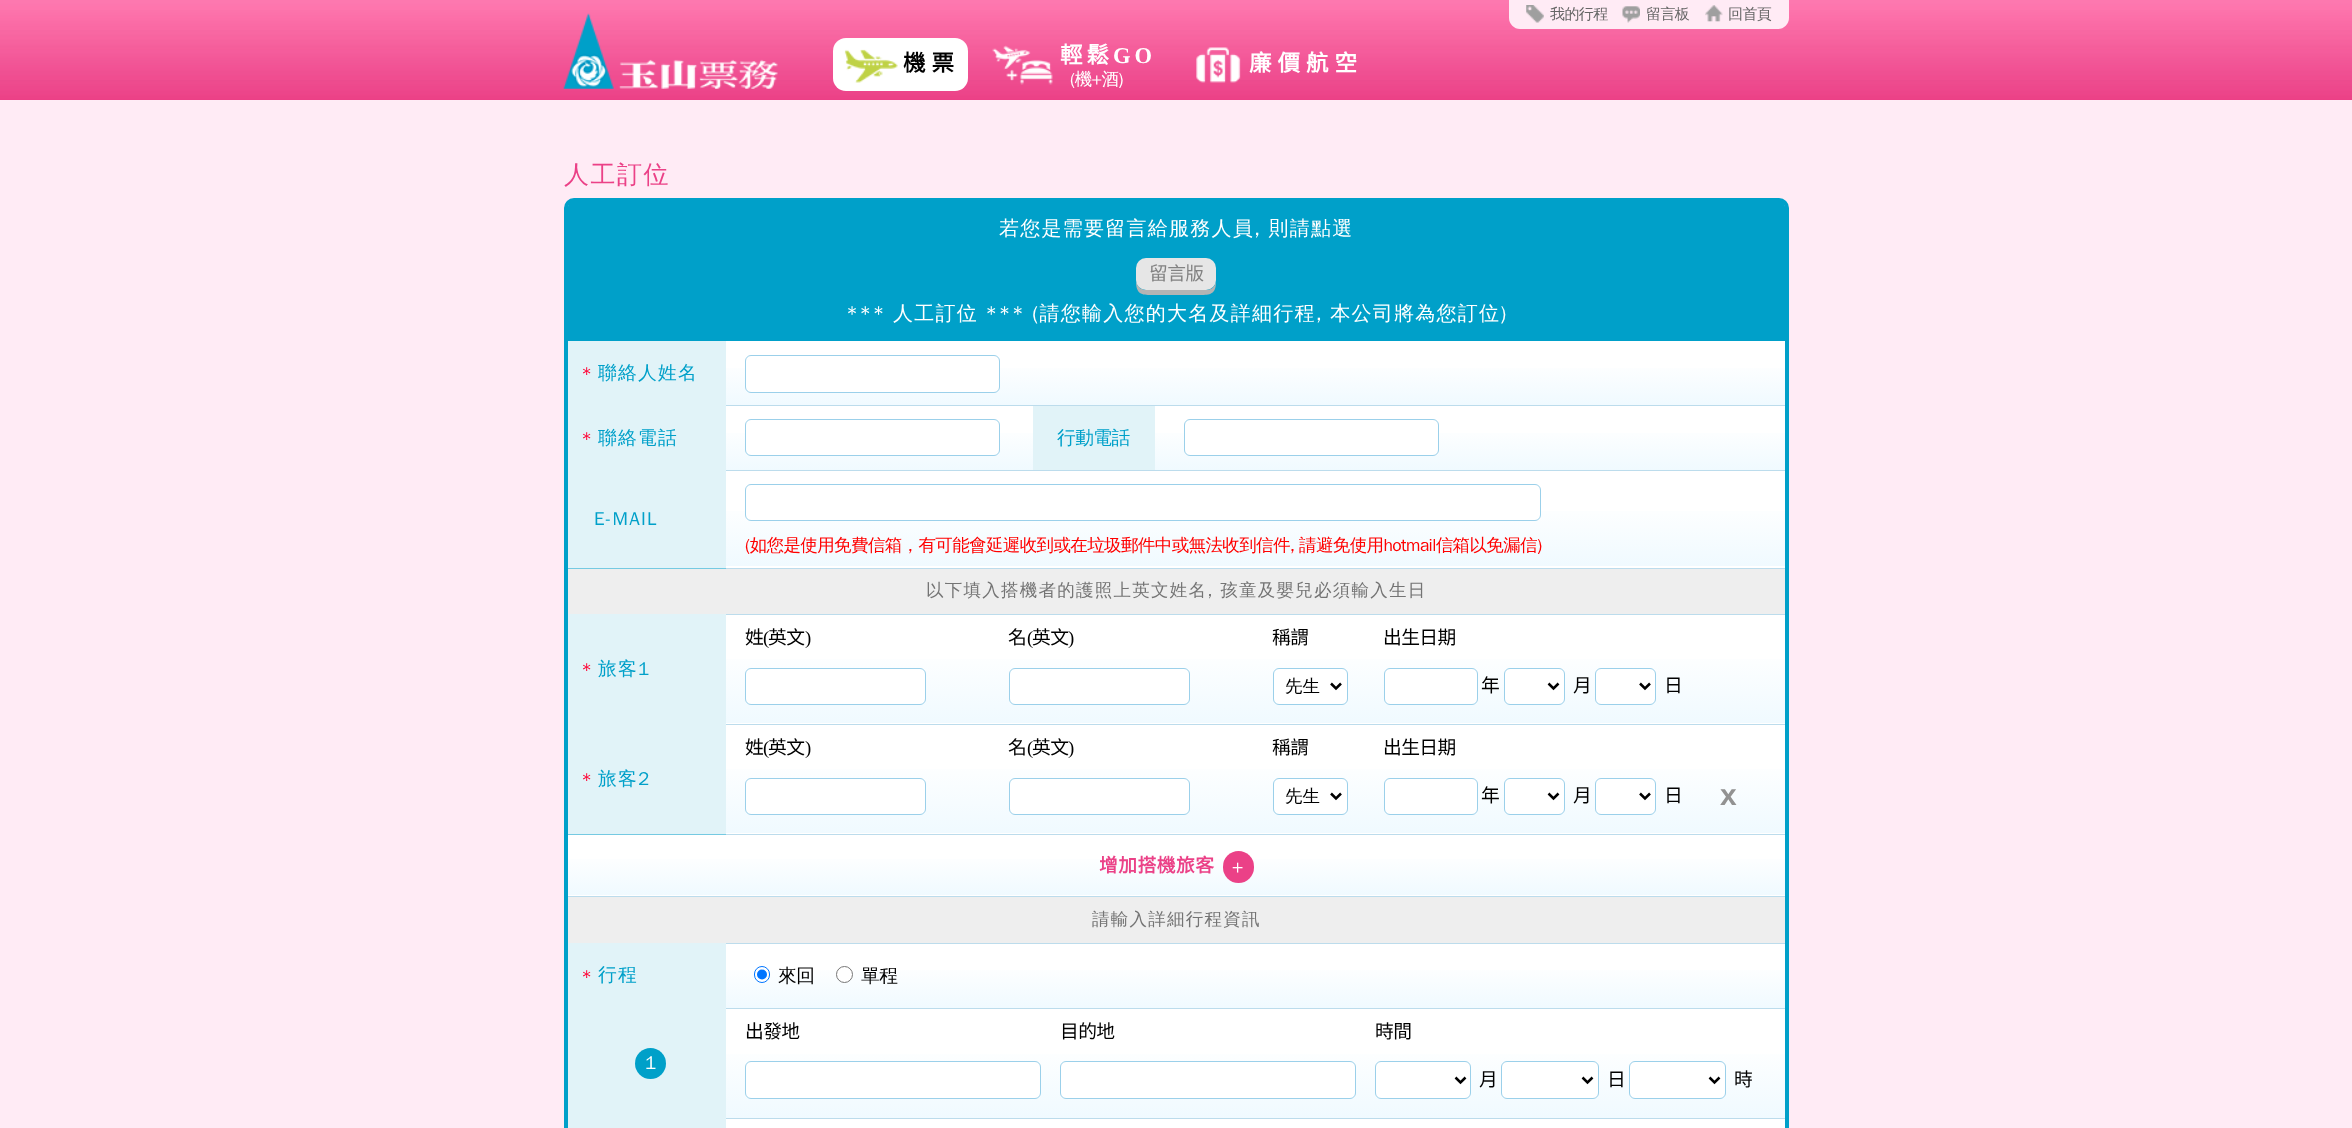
<svg xmlns="http://www.w3.org/2000/svg" width="2352" height="1128" viewBox="0 0 2352 1128">
  <defs>
    <linearGradient id="g1" gradientUnits="userSpaceOnUse" x1="1256" y1="405" x2="1256" y2="341"><stop offset="0" stop-color="#f0faff"/><stop offset="0.7" stop-color="#ffffff"/></linearGradient>
    <linearGradient id="g2" gradientUnits="userSpaceOnUse" x1="1256" y1="470" x2="1256" y2="406"><stop offset="0" stop-color="#f0faff"/><stop offset="0.7" stop-color="#ffffff"/></linearGradient>
    <linearGradient id="g3" gradientUnits="userSpaceOnUse" x1="1256" y1="566" x2="1256" y2="471"><stop offset="0" stop-color="#f0faff"/><stop offset="0.7" stop-color="#ffffff"/></linearGradient>
    <linearGradient id="g4" gradientUnits="userSpaceOnUse" x1="1256" y1="723" x2="1256" y2="614"><stop offset="0" stop-color="#f0faff"/><stop offset="0.7" stop-color="#ffffff"/></linearGradient>
    <linearGradient id="g5" gradientUnits="userSpaceOnUse" x1="1256" y1="833" x2="1256" y2="724"><stop offset="0" stop-color="#f0faff"/><stop offset="0.7" stop-color="#ffffff"/></linearGradient>
    <linearGradient id="g6" gradientUnits="userSpaceOnUse" x1="1176" y1="895" x2="1176" y2="834"><stop offset="0" stop-color="#f0faff"/><stop offset="0.7" stop-color="#ffffff"/></linearGradient>
    <linearGradient id="g7" gradientUnits="userSpaceOnUse" x1="1256" y1="1008" x2="1256" y2="943"><stop offset="0" stop-color="#f0faff"/><stop offset="0.7" stop-color="#ffffff"/></linearGradient>
    <linearGradient id="g8" gradientUnits="userSpaceOnUse" x1="1256" y1="1118" x2="1256" y2="1009"><stop offset="0" stop-color="#f0faff"/><stop offset="0.7" stop-color="#ffffff"/></linearGradient>
  </defs>
  <rect width="100%" height="100%" fill="#ffebf5"/>
  <image x="0" y="0" width="2352" height="100" href="img1.png"/>
  <image x="563" y="13" width="215" height="76" href="img2.png"/>
  <rect x="833" y="38" width="135" height="53" rx="13" fill="#ffffff"/>
  <image x="844" y="49" width="54" height="34" href="img3.png"/>
  <text x="903" y="71" font-family="Noto Sans CJK TC" font-size="22.5" font-weight="bold" letter-spacing="6" fill="#000000">機票</text>
  <image x="992" y="45" width="61" height="40" href="img4.png"/>
  <text x="1060" y="63" font-family="Noto Sans CJK TC" font-size="22.5" font-weight="bold" letter-spacing="4" fill="#ffffff">輕鬆</text>
  <text x="1113" y="63" font-family="Liberation Serif" font-size="22.5" font-weight="bold" letter-spacing="4" fill="#ffffff">GO</text>
  <text x="1070" y="85" font-family="WenQuanYi Zen Hei" font-size="17.5" font-weight="500" letter-spacing="-0.62" fill="#ffffff">(機+酒)</text>
  <image x="1196" y="47" width="45" height="36" href="img5.png"/>
  <text x="1249" y="71" font-family="Noto Sans CJK TC" font-size="22.5" font-weight="bold" letter-spacing="6" fill="#ffffff">廉價航空</text>
  <path d="M1509 0H1789V18C1789 24 1784 29 1778 29H1520C1514 29 1509 24 1509 18Z" fill="#ffebf5"/>
  <image x="1526" y="5" width="18" height="18" href="img6.png"/>
  <text x="1550" y="19" font-family="WenQuanYi Zen Hei" font-size="15" font-weight="500" letter-spacing="-0.62" fill="#666666">我的行程</text>
  <image x="1622" y="6" width="18" height="17" href="img7.png"/>
  <text x="1646" y="19" font-family="WenQuanYi Zen Hei" font-size="15" font-weight="500" letter-spacing="-0.62" fill="#666666">留言板</text>
  <image x="1705" y="5" width="18" height="17" href="img8.png"/>
  <text x="1728" y="19" font-family="WenQuanYi Zen Hei" font-size="15" font-weight="500" letter-spacing="-0.62" fill="#666666">回首頁</text>
  <text x="564" y="183" font-family="WenQuanYi Zen Hei" font-size="25" font-weight="500" letter-spacing="1.5" fill="#eb4187">人工訂位</text>
  <rect x="566" y="200" width="1221" height="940" rx="8" fill="#ffffff" stroke="#00a0c9" stroke-width="4"/>
  <path d="M574 201H1779C1782.5 201 1785 203.5 1785 207V341H568V207C568 203.5 570.5 201 574 201Z" fill="#00a0c9"/>
  <text x="999" y="235" font-family="WenQuanYi Zen Hei" font-size="20" font-weight="500" letter-spacing="1.25" fill="#ffffff">若您是需要留言給服務人員, 則請點選</text>
  <path d="M1136 271V281C1136 296 1143 295 1156 295H1196C1208 295 1216 296 1216 282C1215 287 1211 290 1206 290H1146C1141 290 1136 286 1136 280Z" fill="#b4b4b4"/>
  <rect x="1136" y="258" width="80" height="32" rx="10" fill="#e6e6e6"/>
  <text x="1149" y="280" font-family="Noto Sans CJK TC" font-size="18.75" letter-spacing="-0.62" fill="#828282">留言版</text>
  <text x="846" y="320" font-family="WenQuanYi Zen Hei" font-size="20" font-weight="500" letter-spacing="1.25" fill="#ffffff">*** 人工訂位 *** (請您輸入您的大名及詳細行程, 本公司將為您訂位)</text>
  <rect x="725" y="405" width="1060" height="1" fill="#bcdcec"/>
  <rect x="725" y="470" width="1060" height="1" fill="#bcdcec"/>
  <rect x="568" y="341" width="158" height="227" fill="#e1f3f8"/>
  <text x="581" y="380" font-family="WenQuanYi Zen Hei" font-size="18.75" font-weight="500" letter-spacing="-0.62" fill="#ff0033">*</text>
  <text x="598" y="379" font-family="WenQuanYi Zen Hei" font-size="18.75" font-weight="500" letter-spacing="1.25" fill="#00a0c9">聯絡人姓名</text>
  <rect x="726" y="368" width="1059" height="37" fill="url(#g1)"/>
  <rect x="745.5" y="355.5" width="254" height="37" rx="5.5" fill="#ffffff" stroke="#9bd0ea"/>
  <text x="581" y="445" font-family="WenQuanYi Zen Hei" font-size="18.75" font-weight="500" letter-spacing="-0.62" fill="#ff0033">*</text>
  <text x="598" y="444" font-family="WenQuanYi Zen Hei" font-size="18.75" font-weight="500" letter-spacing="1.25" fill="#00a0c9">聯絡電話</text>
  <rect x="726" y="433" width="1059" height="37" fill="url(#g2)"/>
  <rect x="745.5" y="419.5" width="254" height="36" rx="5.5" fill="#ffffff" stroke="#9bd0ea"/>
  <rect x="1033" y="406" width="122" height="64" fill="#e1f3f8"/>
  <text x="1057" y="444" font-family="WenQuanYi Zen Hei" font-size="18.75" font-weight="500" letter-spacing="-0.62" fill="#00a0c9">行動電話</text>
  <rect x="1184.5" y="419.5" width="254" height="36" rx="5.5" fill="#ffffff" stroke="#9bd0ea"/>
  <rect x="725" y="568" width="1060" height="1" fill="#bcdcec"/>
  <rect x="568" y="568" width="158" height="1" fill="#75cae2"/>
  <text x="594" y="525" font-family="WenQuanYi Zen Hei" font-size="18.75" font-weight="500" letter-spacing="1.25" fill="#00a0c9">E-MAIL</text>
  <rect x="726" y="511" width="1059" height="55" fill="url(#g3)"/>
  <rect x="745.5" y="484.5" width="795" height="36" rx="5.5" fill="#ffffff" stroke="#9bd0ea"/>
  <text x="745" y="551" font-family="WenQuanYi Zen Hei" font-size="17.5" font-weight="500" letter-spacing="-0.62" fill="#ff0000">(如您是使用免費信箱，有可能會延遲收到或在垃圾郵件中或無法收到信件, 請避免使用hotmail信箱以免漏信)</text>
  <rect x="568" y="569" width="1217" height="45" fill="#eeeeee"/>
  <rect x="726" y="614" width="1059" height="1" fill="#bcdcec"/>
  <text x="926" y="596" font-family="WenQuanYi Zen Hei" font-size="17.5" font-weight="500" letter-spacing="1.25" fill="#747474">以下填入搭機者的護照上英文姓名, 孩童及嬰兒必須輸入生日</text>
  <rect x="725" y="724" width="1060" height="1" fill="#bcdcec"/>
  <rect x="568" y="614" width="158" height="220" fill="#e1f3f8"/>
  <text x="581" y="676" font-family="WenQuanYi Zen Hei" font-size="18.75" font-weight="500" letter-spacing="-0.62" fill="#ff0033">*</text>
  <text x="598" y="675" font-family="WenQuanYi Zen Hei" font-size="18.75" font-weight="500" letter-spacing="1.25" fill="#00a0c9">旅客1</text>
  <rect x="726" y="659" width="1059" height="64" fill="url(#g4)"/>
  <text x="745" y="644" font-family="Noto Sans CJK TC" font-size="18.75" letter-spacing="-0.62" fill="#000000">姓</text>
  <text x="763" y="644" font-family="Liberation Serif" font-size="18.75" letter-spacing="-0.62" fill="#000000">(</text>
  <text x="768" y="644" font-family="Noto Sans CJK TC" font-size="18.75" letter-spacing="-0.62" fill="#000000">英文</text>
  <text x="805" y="644" font-family="Liberation Serif" font-size="18.75" letter-spacing="-0.62" fill="#000000">)</text>
  <rect x="745.5" y="668.5" width="180" height="36" rx="5.5" fill="#ffffff" stroke="#9bd0ea"/>
  <text x="1008" y="644" font-family="Noto Sans CJK TC" font-size="18.75" letter-spacing="-0.62" fill="#000000">名</text>
  <text x="1027" y="644" font-family="Liberation Serif" font-size="18.75" letter-spacing="-0.62" fill="#000000">(</text>
  <text x="1032" y="644" font-family="Noto Sans CJK TC" font-size="18.75" letter-spacing="-0.62" fill="#000000">英文</text>
  <text x="1068" y="644" font-family="Liberation Serif" font-size="18.75" letter-spacing="-0.62" fill="#000000">)</text>
  <rect x="1009.5" y="668.5" width="180" height="36" rx="5.5" fill="#ffffff" stroke="#9bd0ea"/>
  <text x="1272" y="644" font-family="Noto Sans CJK TC" font-size="18.75" letter-spacing="-0.62" fill="#000000">稱謂</text>
  <rect x="1273.5" y="668.5" width="74" height="36" rx="5.5" fill="#ffffff" stroke="#9bd0ea"/>
  <path d="M1331 683.5L1336 688.5L1341 683.5" fill="none" stroke="#000000" stroke-width="2.5"/>
  <text x="1285" y="692" font-family="WenQuanYi Zen Hei" font-size="17.5" font-weight="500" fill="#000000">先生</text>
  <text x="1383" y="644" font-family="Noto Sans CJK TC" font-size="18.75" letter-spacing="-0.62" fill="#000000">出生日期</text>
  <rect x="1384.5" y="668.5" width="93" height="36" rx="5.5" fill="#ffffff" stroke="#9bd0ea"/>
  <text x="1481" y="692" font-family="Noto Sans CJK TC" font-size="18.75" letter-spacing="-0.62" fill="#000000">年</text>
  <rect x="1504.5" y="668.5" width="60" height="36" rx="5.5" fill="#ffffff" stroke="#9bd0ea"/>
  <path d="M1548.5 683.5L1553.5 688.5L1558.5 683.5" fill="none" stroke="#000000" stroke-width="2.5"/>
  <text x="1573" y="692" font-family="Noto Sans CJK TC" font-size="18.75" letter-spacing="-0.62" fill="#000000">月</text>
  <rect x="1595.5" y="668.5" width="60" height="36" rx="5.5" fill="#ffffff" stroke="#9bd0ea"/>
  <path d="M1640 683.5L1645 688.5L1650 683.5" fill="none" stroke="#000000" stroke-width="2.5"/>
  <text x="1664" y="692" font-family="Noto Sans CJK TC" font-size="18.75" letter-spacing="-0.62" fill="#000000">日</text>
  <rect x="725" y="834" width="1060" height="1" fill="#bcdcec"/>
  <rect x="568" y="834" width="158" height="1" fill="#75cae2"/>
  <text x="581" y="786" font-family="WenQuanYi Zen Hei" font-size="18.75" font-weight="500" letter-spacing="-0.62" fill="#ff0033">*</text>
  <text x="598" y="785" font-family="WenQuanYi Zen Hei" font-size="18.75" font-weight="500" letter-spacing="1.25" fill="#00a0c9">旅客2</text>
  <rect x="726" y="769" width="1059" height="64" fill="url(#g5)"/>
  <text x="745" y="754" font-family="Noto Sans CJK TC" font-size="18.75" letter-spacing="-0.62" fill="#000000">姓</text>
  <text x="763" y="754" font-family="Liberation Serif" font-size="18.75" letter-spacing="-0.62" fill="#000000">(</text>
  <text x="768" y="754" font-family="Noto Sans CJK TC" font-size="18.75" letter-spacing="-0.62" fill="#000000">英文</text>
  <text x="805" y="754" font-family="Liberation Serif" font-size="18.75" letter-spacing="-0.62" fill="#000000">)</text>
  <rect x="745.5" y="778.5" width="180" height="36" rx="5.5" fill="#ffffff" stroke="#9bd0ea"/>
  <text x="1008" y="754" font-family="Noto Sans CJK TC" font-size="18.75" letter-spacing="-0.62" fill="#000000">名</text>
  <text x="1027" y="754" font-family="Liberation Serif" font-size="18.75" letter-spacing="-0.62" fill="#000000">(</text>
  <text x="1032" y="754" font-family="Noto Sans CJK TC" font-size="18.75" letter-spacing="-0.62" fill="#000000">英文</text>
  <text x="1068" y="754" font-family="Liberation Serif" font-size="18.75" letter-spacing="-0.62" fill="#000000">)</text>
  <rect x="1009.5" y="778.5" width="180" height="36" rx="5.5" fill="#ffffff" stroke="#9bd0ea"/>
  <text x="1272" y="754" font-family="Noto Sans CJK TC" font-size="18.75" letter-spacing="-0.62" fill="#000000">稱謂</text>
  <rect x="1273.5" y="778.5" width="74" height="36" rx="5.5" fill="#ffffff" stroke="#9bd0ea"/>
  <path d="M1331 793.5L1336 798.5L1341 793.5" fill="none" stroke="#000000" stroke-width="2.5"/>
  <text x="1285" y="802" font-family="WenQuanYi Zen Hei" font-size="17.5" font-weight="500" fill="#000000">先生</text>
  <text x="1383" y="754" font-family="Noto Sans CJK TC" font-size="18.75" letter-spacing="-0.62" fill="#000000">出生日期</text>
  <rect x="1384.5" y="778.5" width="93" height="36" rx="5.5" fill="#ffffff" stroke="#9bd0ea"/>
  <text x="1481" y="802" font-family="Noto Sans CJK TC" font-size="18.75" letter-spacing="-0.62" fill="#000000">年</text>
  <rect x="1504.5" y="778.5" width="60" height="36" rx="5.5" fill="#ffffff" stroke="#9bd0ea"/>
  <path d="M1548.5 793.5L1553.5 798.5L1558.5 793.5" fill="none" stroke="#000000" stroke-width="2.5"/>
  <text x="1573" y="802" font-family="Noto Sans CJK TC" font-size="18.75" letter-spacing="-0.62" fill="#000000">月</text>
  <rect x="1595.5" y="778.5" width="60" height="36" rx="5.5" fill="#ffffff" stroke="#9bd0ea"/>
  <path d="M1640 793.5L1645 798.5L1650 793.5" fill="none" stroke="#000000" stroke-width="2.5"/>
  <text x="1664" y="802" font-family="Noto Sans CJK TC" font-size="18.75" letter-spacing="-0.62" fill="#000000">日</text>
  <text x="1720" y="805" font-family="Liberation Sans" font-size="30" font-weight="bold" letter-spacing="-0.62" fill="#929292">x</text>
  <rect x="568" y="859" width="1217" height="36" fill="url(#g6)"/>
  <rect x="568" y="896" width="1217" height="1" fill="#bcdcec"/>
  <text x="1099" y="872" font-family="Noto Sans CJK TC" font-size="18.75" font-weight="bold" letter-spacing="0.5" fill="#eb4187">增加搭機旅客</text>
  <rect x="1223" y="851" width="31" height="32" rx="15.5" fill="#eb4187"/>
  <text x="1232" y="873" font-family="WenQuanYi Zen Hei" font-size="18.75" font-weight="500" letter-spacing="-0.62" fill="#ffffff">+</text>
  <rect x="568" y="897" width="1217" height="46" fill="#eeeeee"/>
  <rect x="726" y="943" width="1059" height="1" fill="#bcdcec"/>
  <text x="1092" y="925" font-family="WenQuanYi Zen Hei" font-size="17.5" font-weight="500" letter-spacing="1.25" fill="#747474">請輸入詳細行程資訊</text>
  <rect x="725" y="1008" width="1060" height="1" fill="#bcdcec"/>
  <rect x="725" y="1118" width="1060" height="1" fill="#bcdcec"/>
  <rect x="568" y="943" width="158" height="185" fill="#e1f3f8"/>
  <text x="581" y="983" font-family="WenQuanYi Zen Hei" font-size="18.75" font-weight="500" letter-spacing="-0.62" fill="#ff0033">*</text>
  <text x="598" y="981" font-family="WenQuanYi Zen Hei" font-size="18.75" font-weight="500" letter-spacing="1.25" fill="#00a0c9">行程</text>
  <rect x="726" y="970" width="1059" height="38" fill="url(#g7)"/>
  <rect x="754.5" y="966.5" width="15" height="16" rx="7.5" fill="#ffffff" stroke="#0075ff"/>
  <circle cx="762" cy="974.5" r="5" fill="#0075ff"/>
  <text x="778" y="982" font-family="WenQuanYi Zen Hei" font-size="18.75" font-weight="500" letter-spacing="-0.62" fill="#000000">來回</text>
  <circle cx="844.5" cy="974.5" r="8" fill="#ffffff" stroke="#767676"/>
  <text x="861" y="982" font-family="WenQuanYi Zen Hei" font-size="18.75" font-weight="500" letter-spacing="-0.62" fill="#000000">單程</text>
  <circle cx="650.5" cy="1063.5" r="15.5" fill="#00a0c9"/>
  <text x="645" y="1069" font-family="WenQuanYi Zen Hei" font-size="18.75" font-weight="500" letter-spacing="-0.62" fill="#ffffff">1</text>
  <rect x="726" y="1054" width="1059" height="64" fill="url(#g8)"/>
  <text x="745" y="1038" font-family="Noto Sans CJK TC" font-size="18.75" letter-spacing="-0.62" fill="#000000">出發地</text>
  <rect x="745.5" y="1061.5" width="295" height="37" rx="5.5" fill="#ffffff" stroke="#9bd0ea"/>
  <text x="1060" y="1038" font-family="Noto Sans CJK TC" font-size="18.75" letter-spacing="-0.62" fill="#000000">目的地</text>
  <rect x="1060.5" y="1061.5" width="295" height="37" rx="5.5" fill="#ffffff" stroke="#9bd0ea"/>
  <text x="1375" y="1038" font-family="Noto Sans CJK TC" font-size="18.75" letter-spacing="-0.62" fill="#000000">時間</text>
  <rect x="1375.5" y="1061.5" width="95" height="37" rx="5.5" fill="#ffffff" stroke="#9bd0ea"/>
  <path d="M1455.5 1077.5L1460.5 1082.5L1465.5 1077.5" fill="none" stroke="#000000" stroke-width="2.5"/>
  <text x="1479" y="1086" font-family="Noto Sans CJK TC" font-size="18.75" letter-spacing="-0.62" fill="#000000">月</text>
  <rect x="1501.5" y="1061.5" width="97" height="37" rx="5.5" fill="#ffffff" stroke="#9bd0ea"/>
  <path d="M1582.5 1077.5L1587.5 1082.5L1592.5 1077.5" fill="none" stroke="#000000" stroke-width="2.5"/>
  <text x="1607" y="1086" font-family="Noto Sans CJK TC" font-size="18.75" letter-spacing="-0.62" fill="#000000">日</text>
  <rect x="1629.5" y="1061.5" width="96" height="37" rx="5.5" fill="#ffffff" stroke="#9bd0ea"/>
  <path d="M1709.5 1077.5L1714.5 1082.5L1719.5 1077.5" fill="none" stroke="#000000" stroke-width="2.5"/>
  <text x="1734" y="1086" font-family="Noto Sans CJK TC" font-size="18.75" letter-spacing="-0.62" fill="#000000">時</text>
</svg>
